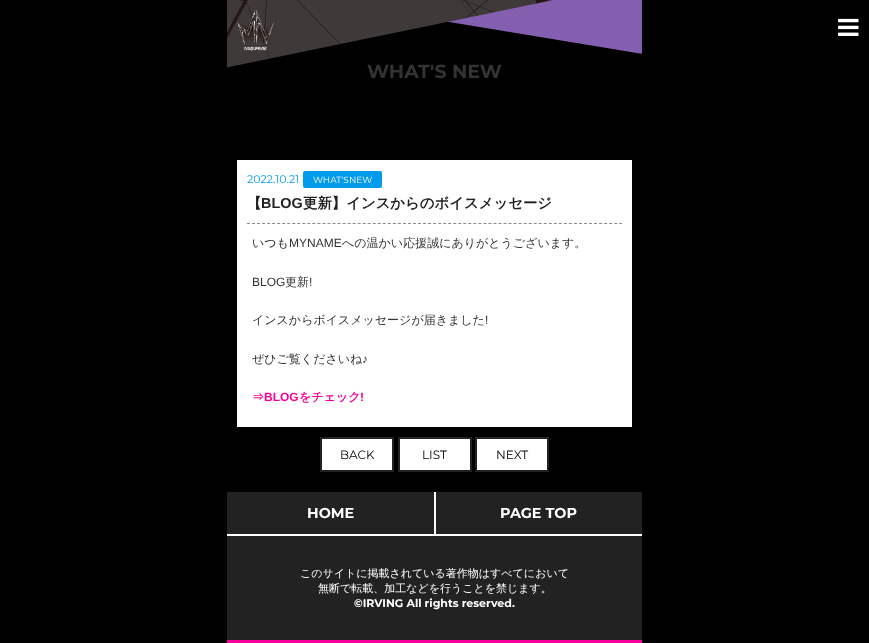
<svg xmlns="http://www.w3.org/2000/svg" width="869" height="643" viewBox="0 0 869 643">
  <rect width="100%" height="100%" fill="#000000"/>
  <image x="227" y="0" width="415" height="68" href="img1.png"/>
  <image x="237" y="10" width="37" height="41" href="img2.png"/>
  <image x="838" y="18" width="21" height="18" href="img3.png"/>
  <text x="367" y="78" font-family="Montserrat" font-size="19" font-weight="bold" fill="#333333">WHAT'S NEW</text>
  <rect x="237" y="160" width="395" height="267" fill="#ffffff"/>
  <text x="247" y="183" font-family="Montserrat" font-size="11" fill="#009bec">2022.10.21</text>
  <rect x="303" y="171" width="79" height="17" rx="2" fill="#009bec"/>
  <text x="313" y="183" font-family="Montserrat" font-size="9" fill="#ffffff">WHAT'SNEW</text>
  <path d="M247 223.5H622" fill="none" stroke="#8a8a8a" stroke-dasharray="3 2.03"/>
  <text x="247" y="208" font-family="WenQuanYi Zen Hei" font-size="14.4" font-weight="bold" fill="#222222">【</text>
  <text x="261" y="208" font-family="Liberation Sans" font-size="14.4" font-weight="bold" fill="#222222">BLOG</text>
  <text x="303" y="208" font-family="WenQuanYi Zen Hei" font-size="14.4" font-weight="bold" fill="#222222">更新】インスからのボイスメッセージ</text>
  <text x="252" y="247" font-family="WenQuanYi Zen Hei" font-size="12" font-weight="500" fill="#333333">いつも</text>
  <text x="289" y="247" font-family="Liberation Sans" font-size="12" fill="#333333">MYNAME</text>
  <text x="342" y="247" font-family="WenQuanYi Zen Hei" font-size="12" font-weight="500" fill="#333333">への温かい応援誠にありがとうございます。</text>
  <text x="252" y="286" font-family="Liberation Sans" font-size="12" fill="#333333">BLOG</text>
  <text x="285" y="286" font-family="WenQuanYi Zen Hei" font-size="12" font-weight="500" fill="#333333">更新</text>
  <text x="309" y="286" font-family="Liberation Sans" font-size="12" fill="#333333">!</text>
  <text x="252" y="324" font-family="WenQuanYi Zen Hei" font-size="12" font-weight="500" fill="#333333">インスからボイスメッセージが届きました</text>
  <text x="485" y="324" font-family="Liberation Sans" font-size="12" fill="#333333">!</text>
  <text x="252" y="363" font-family="WenQuanYi Zen Hei" font-size="12" font-weight="500" fill="#333333">ぜひご覧くださいね</text>
  <text x="362" y="363" font-family="Liberation Sans" font-size="12" fill="#333333">♪</text>
  <text x="252" y="401" font-family="WenQuanYi Zen Hei" font-size="12" font-weight="bold" fill="#f7009b">⇒</text>
  <text x="264" y="401" font-family="Liberation Sans" font-size="12" font-weight="bold" fill="#f7009b">BLOG</text>
  <text x="299" y="401" font-family="WenQuanYi Zen Hei" font-size="12" font-weight="bold" fill="#f7009b">をチェック</text>
  <text x="360" y="401" font-family="Liberation Sans" font-size="12" font-weight="bold" fill="#f7009b">!</text>
  <rect x="321" y="438" width="72" height="33" fill="#ffffff" stroke="#222222" stroke-width="2"/>
  <text x="340" y="459" font-family="Montserrat" font-size="12" fill="#000000">BACK</text>
  <rect x="399" y="438" width="72" height="33" fill="#ffffff" stroke="#222222" stroke-width="2"/>
  <text x="422" y="459" font-family="Montserrat" font-size="12" fill="#000000">LIST</text>
  <rect x="476" y="438" width="72" height="33" fill="#ffffff" stroke="#222222" stroke-width="2"/>
  <text x="496" y="459" font-family="Montserrat" font-size="12" fill="#000000">NEXT</text>
  <rect x="227" y="492" width="207" height="42" fill="#222222"/>
  <rect x="434" y="492" width="1" height="44" fill="#ffffff"/>
  <rect x="227" y="534" width="415" height="2" fill="#ffffff"/>
  <text x="307" y="518" font-family="Montserrat" font-size="14.4" font-weight="bold" fill="#ffffff">HOME</text>
  <rect x="436" y="492" width="206" height="42" fill="#222222"/>
  <rect x="435" y="492" width="1" height="44" fill="#ffffff"/>
  <text x="500" y="518" font-family="Montserrat" font-size="14.4" font-weight="bold" fill="#ffffff">PAGE TOP</text>
  <rect x="227" y="536" width="415" height="104" fill="#222222"/>
  <rect x="227" y="640" width="415" height="3" fill="#f7009b"/>
  <text x="300" y="577" font-family="WenQuanYi Zen Hei" font-size="11" font-weight="500" fill="#ffffff">このサイトに掲載されている著作物はすべてにおいて</text>
  <text x="318" y="592" font-family="WenQuanYi Zen Hei" font-size="11" font-weight="500" fill="#ffffff">無断で転載、加工などを行うことを禁じます。</text>
  <text x="354" y="607" font-family="Montserrat" font-size="11" font-weight="bold" fill="#ffffff">©IRVING All rights reserved.</text>
</svg>
